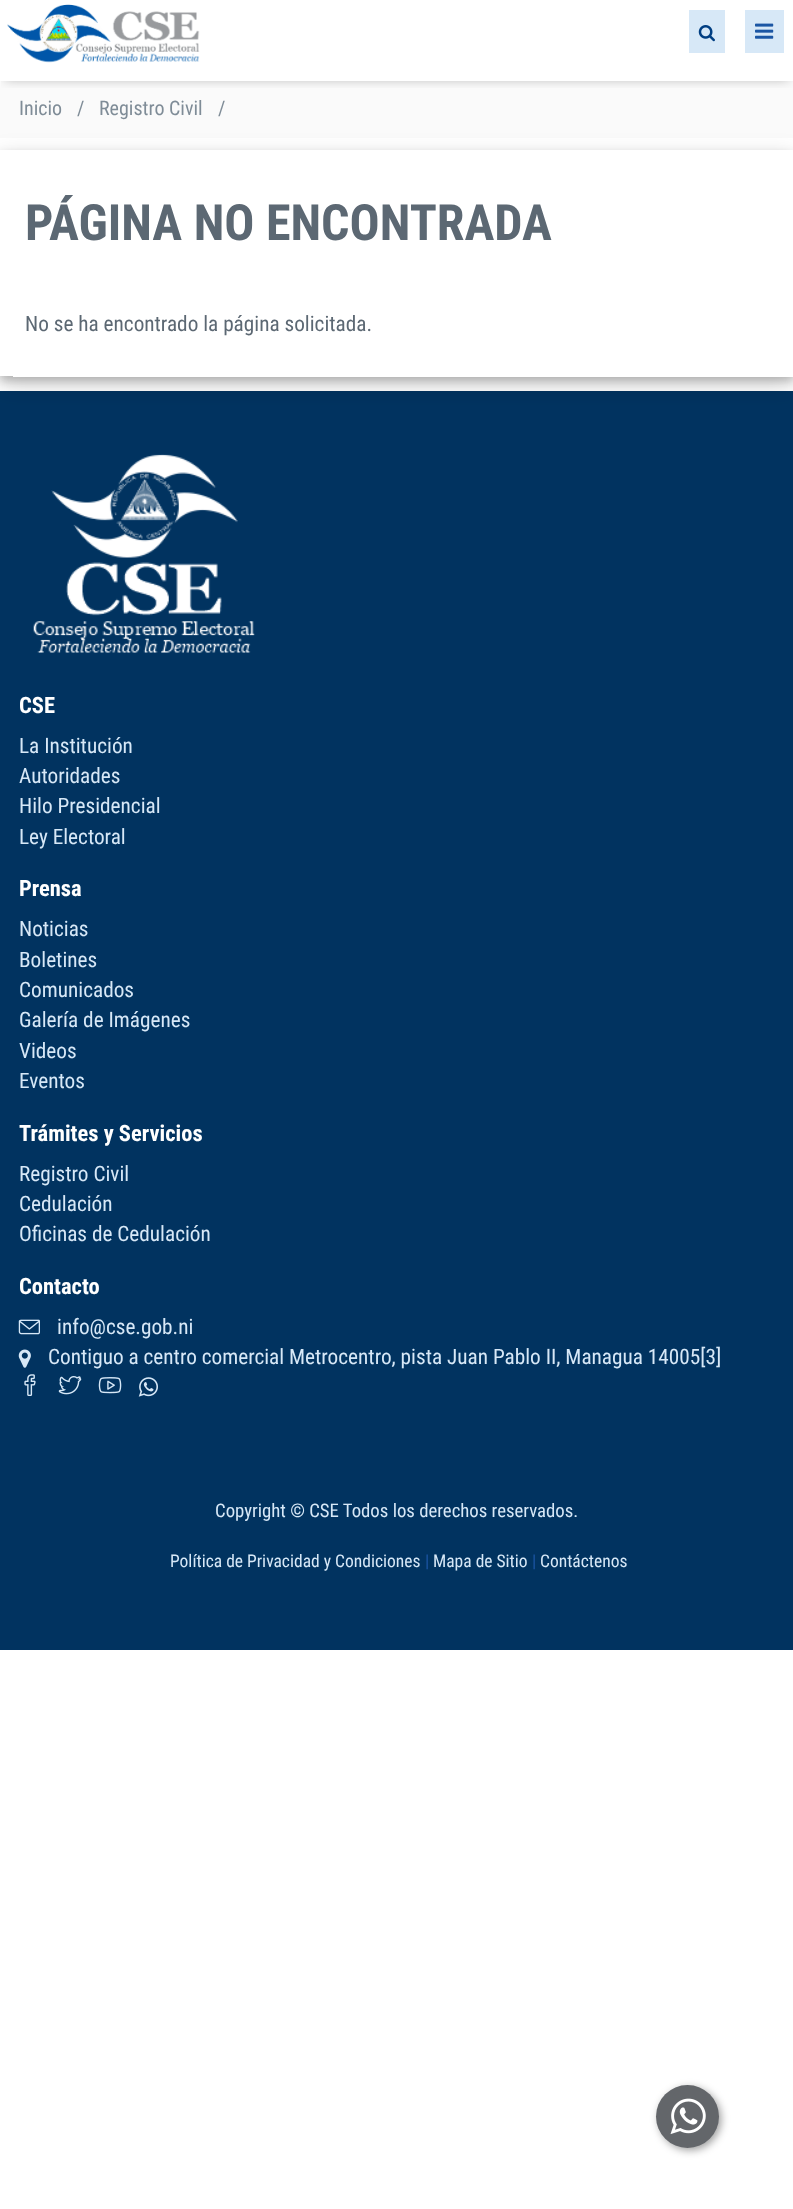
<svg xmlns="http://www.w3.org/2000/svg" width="793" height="2209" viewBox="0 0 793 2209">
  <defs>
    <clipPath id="clip1"><rect x="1" y="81" width="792" height="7"/></clipPath>
    <filter id="blur1" x="-50%" y="-200%" width="200%" height="500%"><feGaussianBlur stdDeviation="5.5"/></filter>
    <clipPath id="clip2"><path d="M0 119H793V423H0ZM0 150H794V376H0Z" clip-rule="evenodd"/></clipPath>
    <filter id="blur2" x="-50%" y="-200%" width="200%" height="500%"><feGaussianBlur stdDeviation="12.5"/></filter>
    <clipPath id="clip3"><path d="M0 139H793V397H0ZM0 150H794V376H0Z" clip-rule="evenodd"/></clipPath>
    <filter id="blur3" x="-50%" y="-200%" width="200%" height="500%"><feGaussianBlur stdDeviation="5"/></filter>
    <filter id="blur4" x="-50%" y="-200%" width="200%" height="500%"><feGaussianBlur stdDeviation="4"/></filter>
  </defs>
  <rect width="100%" height="100%" fill="#ffffff"/>
  <rect x="0" y="81" width="793" height="57" fill="#fafafa"/>
  <g clip-path="url(#clip1)">
    <rect x="5" y="9" width="784" height="71" fill="#000000" fill-opacity="0.25" filter="url(#blur1)"/>
  </g>
  <image x="7" y="4" width="193" height="59" href="img1.png"/>
  <rect x="689" y="10" width="36" height="43" fill="#d7e8f7"/>
  <image x="698" y="25" width="17" height="17" href="img2.png"/>
  <rect x="745" y="10" width="39" height="43" fill="#d7e8f7"/>
  <image x="755" y="23" width="19" height="16" href="img3.png"/>
  <text x="19" y="115" font-family="Roboto Condensed" font-size="20" fill="#7f8c97">Inicio</text>
  <text x="77" y="115" font-family="Roboto Condensed" font-size="20" fill="#7f8c97">/</text>
  <text x="99" y="115" font-family="Roboto Condensed" font-size="20" fill="#7f8c97">Registro Civil</text>
  <text x="218" y="115" font-family="Roboto Condensed" font-size="20" fill="#7f8c97">/</text>
  <rect x="0" y="391" width="793" height="1259" fill="#013360"/>
  <g clip-path="url(#clip2)">
    <rect x="0" y="158" width="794" height="226" fill="#000000" fill-opacity="0.19" filter="url(#blur2)"/>
  </g>
  <g clip-path="url(#clip3)">
    <rect x="0" y="155" width="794" height="226" fill="#000000" fill-opacity="0.2" filter="url(#blur3)"/>
  </g>
  <text x="25" y="240" font-family="Roboto Condensed" font-size="50" font-weight="bold" fill="#5c6873">PÁGINA NO ENCONTRADA</text>
  <text x="25" y="331" font-family="Roboto Condensed" font-size="21.25" fill="#5c6873">No se ha encontrado la página solicitada.</text>
  <rect x="13" y="376" width="780" height="1" fill="#ffffff"/>
  <image x="33" y="454" width="222" height="199" href="img4.png"/>
  <text x="19" y="713" font-family="Roboto Condensed" font-size="22.5" font-weight="bold" fill="#ffffff">CSE</text>
  <text x="19" y="753" font-family="Roboto Condensed" font-size="21.25" fill="#d7e8f7">La Institución</text>
  <text x="19" y="783" font-family="Roboto Condensed" font-size="21.25" fill="#d7e8f7">Autoridades</text>
  <text x="19" y="813" font-family="Roboto Condensed" font-size="21.25" fill="#d7e8f7">Hilo Presidencial</text>
  <text x="19" y="844" font-family="Roboto Condensed" font-size="21.25" fill="#d7e8f7">Ley Electoral</text>
  <text x="19" y="896" font-family="Roboto Condensed" font-size="22.5" font-weight="bold" fill="#ffffff">Prensa</text>
  <text x="19" y="936" font-family="Roboto Condensed" font-size="21.25" fill="#d7e8f7">Noticias</text>
  <text x="19" y="967" font-family="Roboto Condensed" font-size="21.25" fill="#d7e8f7">Boletines</text>
  <text x="19" y="997" font-family="Roboto Condensed" font-size="21.25" fill="#d7e8f7">Comunicados</text>
  <text x="19" y="1027" font-family="Roboto Condensed" font-size="21.25" fill="#d7e8f7">Galería de Imágenes</text>
  <text x="19" y="1058" font-family="Roboto Condensed" font-size="21.25" fill="#d7e8f7">Videos</text>
  <text x="19" y="1088" font-family="Roboto Condensed" font-size="21.25" fill="#d7e8f7">Eventos</text>
  <text x="19" y="1141" font-family="Roboto Condensed" font-size="22.5" font-weight="bold" fill="#ffffff">Trámites y Servicios</text>
  <text x="19" y="1181" font-family="Roboto Condensed" font-size="21.25" fill="#d7e8f7">Registro Civil</text>
  <text x="19" y="1211" font-family="Roboto Condensed" font-size="21.25" fill="#d7e8f7">Cedulación</text>
  <text x="19" y="1241" font-family="Roboto Condensed" font-size="21.25" fill="#d7e8f7">Oficinas de Cedulación</text>
  <text x="19" y="1294" font-family="Roboto Condensed" font-size="22.5" font-weight="bold" fill="#ffffff">Contacto</text>
  <image x="18" y="1319" width="22" height="16" href="img5.png"/>
  <text x="57" y="1334" font-family="Roboto Condensed" font-size="21.25" fill="#d7e8f7">info@cse.gob.ni</text>
  <image x="18" y="1349" width="13" height="19" href="img6.png"/>
  <text x="48" y="1364" font-family="Roboto Condensed" font-size="21.25" fill="#d7e8f7">Contiguo a centro comercial Metrocentro, pista Juan Pablo II, Managua 14005[3]</text>
  <image x="24" y="1374" width="12" height="22" href="img7.png"/>
  <image x="58" y="1376" width="24" height="19" href="img8.png"/>
  <image x="98" y="1377" width="24" height="17" href="img9.png"/>
  <image x="138" y="1377" width="20" height="20" href="img10.png"/>
  <text x="215" y="1517" font-family="Roboto Condensed" font-size="18.75" fill="#d7e8f7">Copyright © CSE Todos los derechos reservados.</text>
  <text x="170" y="1567" font-family="Roboto Condensed" font-size="17.5" fill="#d7e8f7">Política de Privacidad y Condiciones</text>
  <text x="425" y="1567" font-family="Roboto Condensed" font-size="17.5" fill="#1b56a4">|</text>
  <text x="433" y="1567" font-family="Roboto Condensed" font-size="17.5" fill="#d7e8f7">Mapa de Sitio</text>
  <text x="532" y="1567" font-family="Roboto Condensed" font-size="17.5" fill="#1b56a4">|</text>
  <text x="540" y="1567" font-family="Roboto Condensed" font-size="17.5" fill="#d7e8f7">Contáctenos</text>
  <rect x="659" y="2088" width="62" height="62" rx="31" fill="#000000" fill-opacity="0.4" filter="url(#blur4)"/>
  <circle cx="687.5" cy="2116.5" r="31.5" fill="#63666a"/>
  <image x="670" y="2098" width="36" height="37" href="img11.png"/>
</svg>
